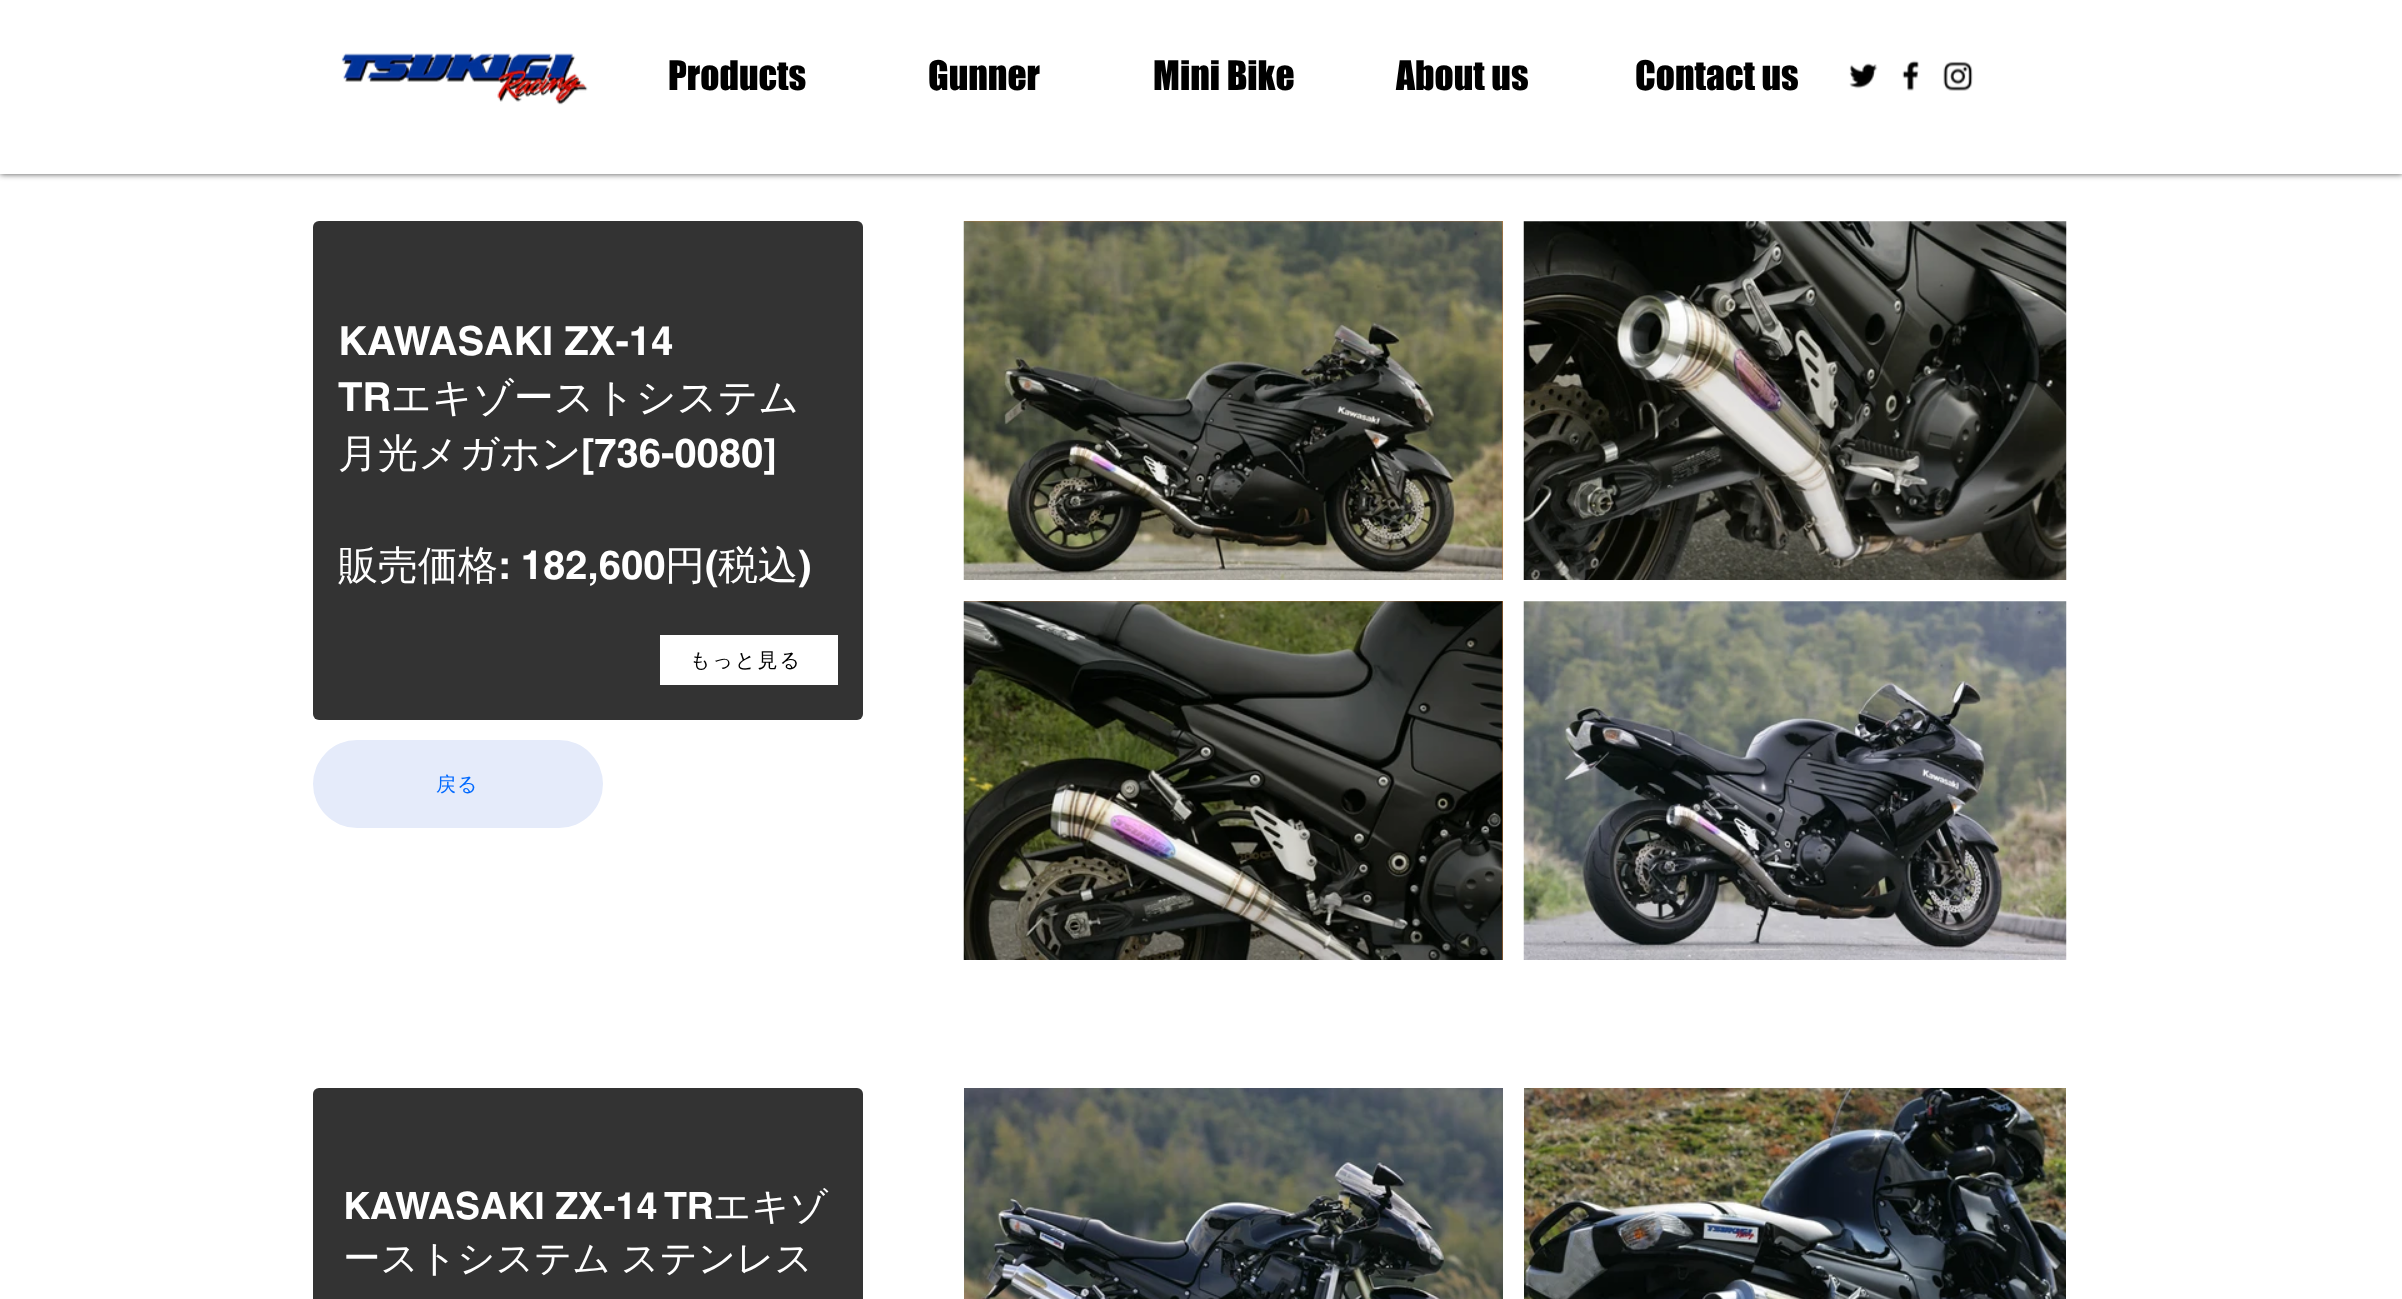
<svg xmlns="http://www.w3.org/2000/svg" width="2402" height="1299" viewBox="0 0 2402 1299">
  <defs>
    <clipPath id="clip1"><path d="M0 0H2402V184H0ZM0 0H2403V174H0Z" clip-rule="evenodd"/></clipPath>
    <filter id="blur1" x="-50%" y="-200%" width="200%" height="500%"><feGaussianBlur stdDeviation="3"/></filter>
  </defs>
  <rect width="100%" height="100%" fill="#ffffff"/>
  <g clip-path="url(#clip1)">
    <rect x="0" y="0" width="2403" height="174" fill="#000000" fill-opacity="0.7" filter="url(#blur1)"/>
  </g>
  <rect x="0" y="173" width="2402" height="1" fill="#ffffff" fill-opacity="0.6"/>
  <image x="341" y="53" width="247" height="52" href="img1.png"/>
  <text x="668" y="90" font-family="'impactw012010'" font-size="37.5" fill="#000000">Products</text>
  <text x="928" y="90" font-family="'impactw012010'" font-size="37.5" fill="#000000">Gunner</text>
  <text x="1153" y="90" font-family="'impactw012010'" font-size="37.5" fill="#000000">Mini Bike</text>
  <text x="1396" y="90" font-family="'impactw012010'" font-size="37.5" fill="#000000">About us</text>
  <text x="1635" y="90" font-family="'impactw012010'" font-size="37.5" fill="#000000">Contact us</text>
  <image x="1849" y="63" width="29" height="26" href="img2.png"/>
  <image x="1902" y="60" width="17" height="31" href="img3.png"/>
  <image x="1943" y="61" width="30" height="30" href="img4.png"/>
  <rect x="313" y="221" width="550" height="499" rx="6" fill="#333333"/>
  <text x="338" y="355" font-family="helvetica" font-size="40" font-weight="bold" fill="#ffffff">KAWASAKI ZX-14</text>
  <text x="338" y="411" font-family="helvetica" font-size="40" font-weight="bold" fill="#ffffff">TR</text>
  <text x="391" y="411" font-family="WenQuanYi Zen Hei" font-size="40" font-weight="500" fill="#ffffff">エキゾーストシステム</text>
  <text x="338" y="467" font-family="WenQuanYi Zen Hei" font-size="40" font-weight="500" fill="#ffffff">月光メガホン</text>
  <text x="581" y="467" font-family="helvetica" font-size="40" font-weight="bold" fill="#ffffff">[736-0080]</text>
  <text x="338" y="579" font-family="WenQuanYi Zen Hei" font-size="40" font-weight="500" fill="#ffffff">販売価格</text>
  <text x="498" y="579" font-family="helvetica" font-size="40" font-weight="bold" fill="#ffffff">: 182,600</text>
  <text x="665" y="579" font-family="WenQuanYi Zen Hei" font-size="40" font-weight="500" fill="#ffffff">円</text>
  <text x="705" y="579" font-family="helvetica" font-size="40" font-weight="bold" fill="#ffffff">(</text>
  <text x="718" y="579" font-family="WenQuanYi Zen Hei" font-size="40" font-weight="500" fill="#ffffff">税込</text>
  <text x="798" y="579" font-family="helvetica" font-size="40" font-weight="bold" fill="#ffffff">)</text>
  <rect x="660" y="635" width="178" height="50" fill="#ffffff"/>
  <text x="690" y="667" font-family="WenQuanYi Zen Hei" font-size="20" font-weight="500" letter-spacing="2" fill="#000000">もっと見る</text>
  <rect x="964" y="221" width="539" height="359" fill="#d28036"/>
  <image x="963" y="221" width="540" height="359" href="img5.png"/>
  <image x="1523" y="221" width="544" height="359" href="img6.png"/>
  <rect x="964" y="601" width="539" height="359" fill="#d28036"/>
  <image x="963" y="601" width="540" height="359" href="img7.png"/>
  <image x="1523" y="601" width="544" height="359" href="img8.png"/>
  <rect x="313" y="740" width="290" height="88" rx="44" fill="#e5ebfa"/>
  <text x="436" y="791" font-family="WenQuanYi Zen Hei" font-size="20" font-weight="500" letter-spacing="1" fill="#0069ff">戻る</text>
  <rect x="313" y="1088" width="550" height="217" rx="6" fill="#333333"/>
  <text x="343" y="1219" font-family="helvetica" font-size="37.5" font-weight="bold" fill="#ffffff">KAWASAKI ZX-14 TR</text>
  <text x="713" y="1219" font-family="WenQuanYi Zen Hei" font-size="37.5" font-weight="500" fill="#ffffff">エキゾ</text>
  <text x="343" y="1271" word-spacing="-1" font-family="WenQuanYi Zen Hei" font-size="37.5" font-weight="500" fill="#ffffff">ーストシステム ステンレス</text>
  <image x="964" y="1088" width="539" height="211" href="img9.png"/>
  <image x="1524" y="1088" width="542" height="211" href="img10.png"/>
</svg>
